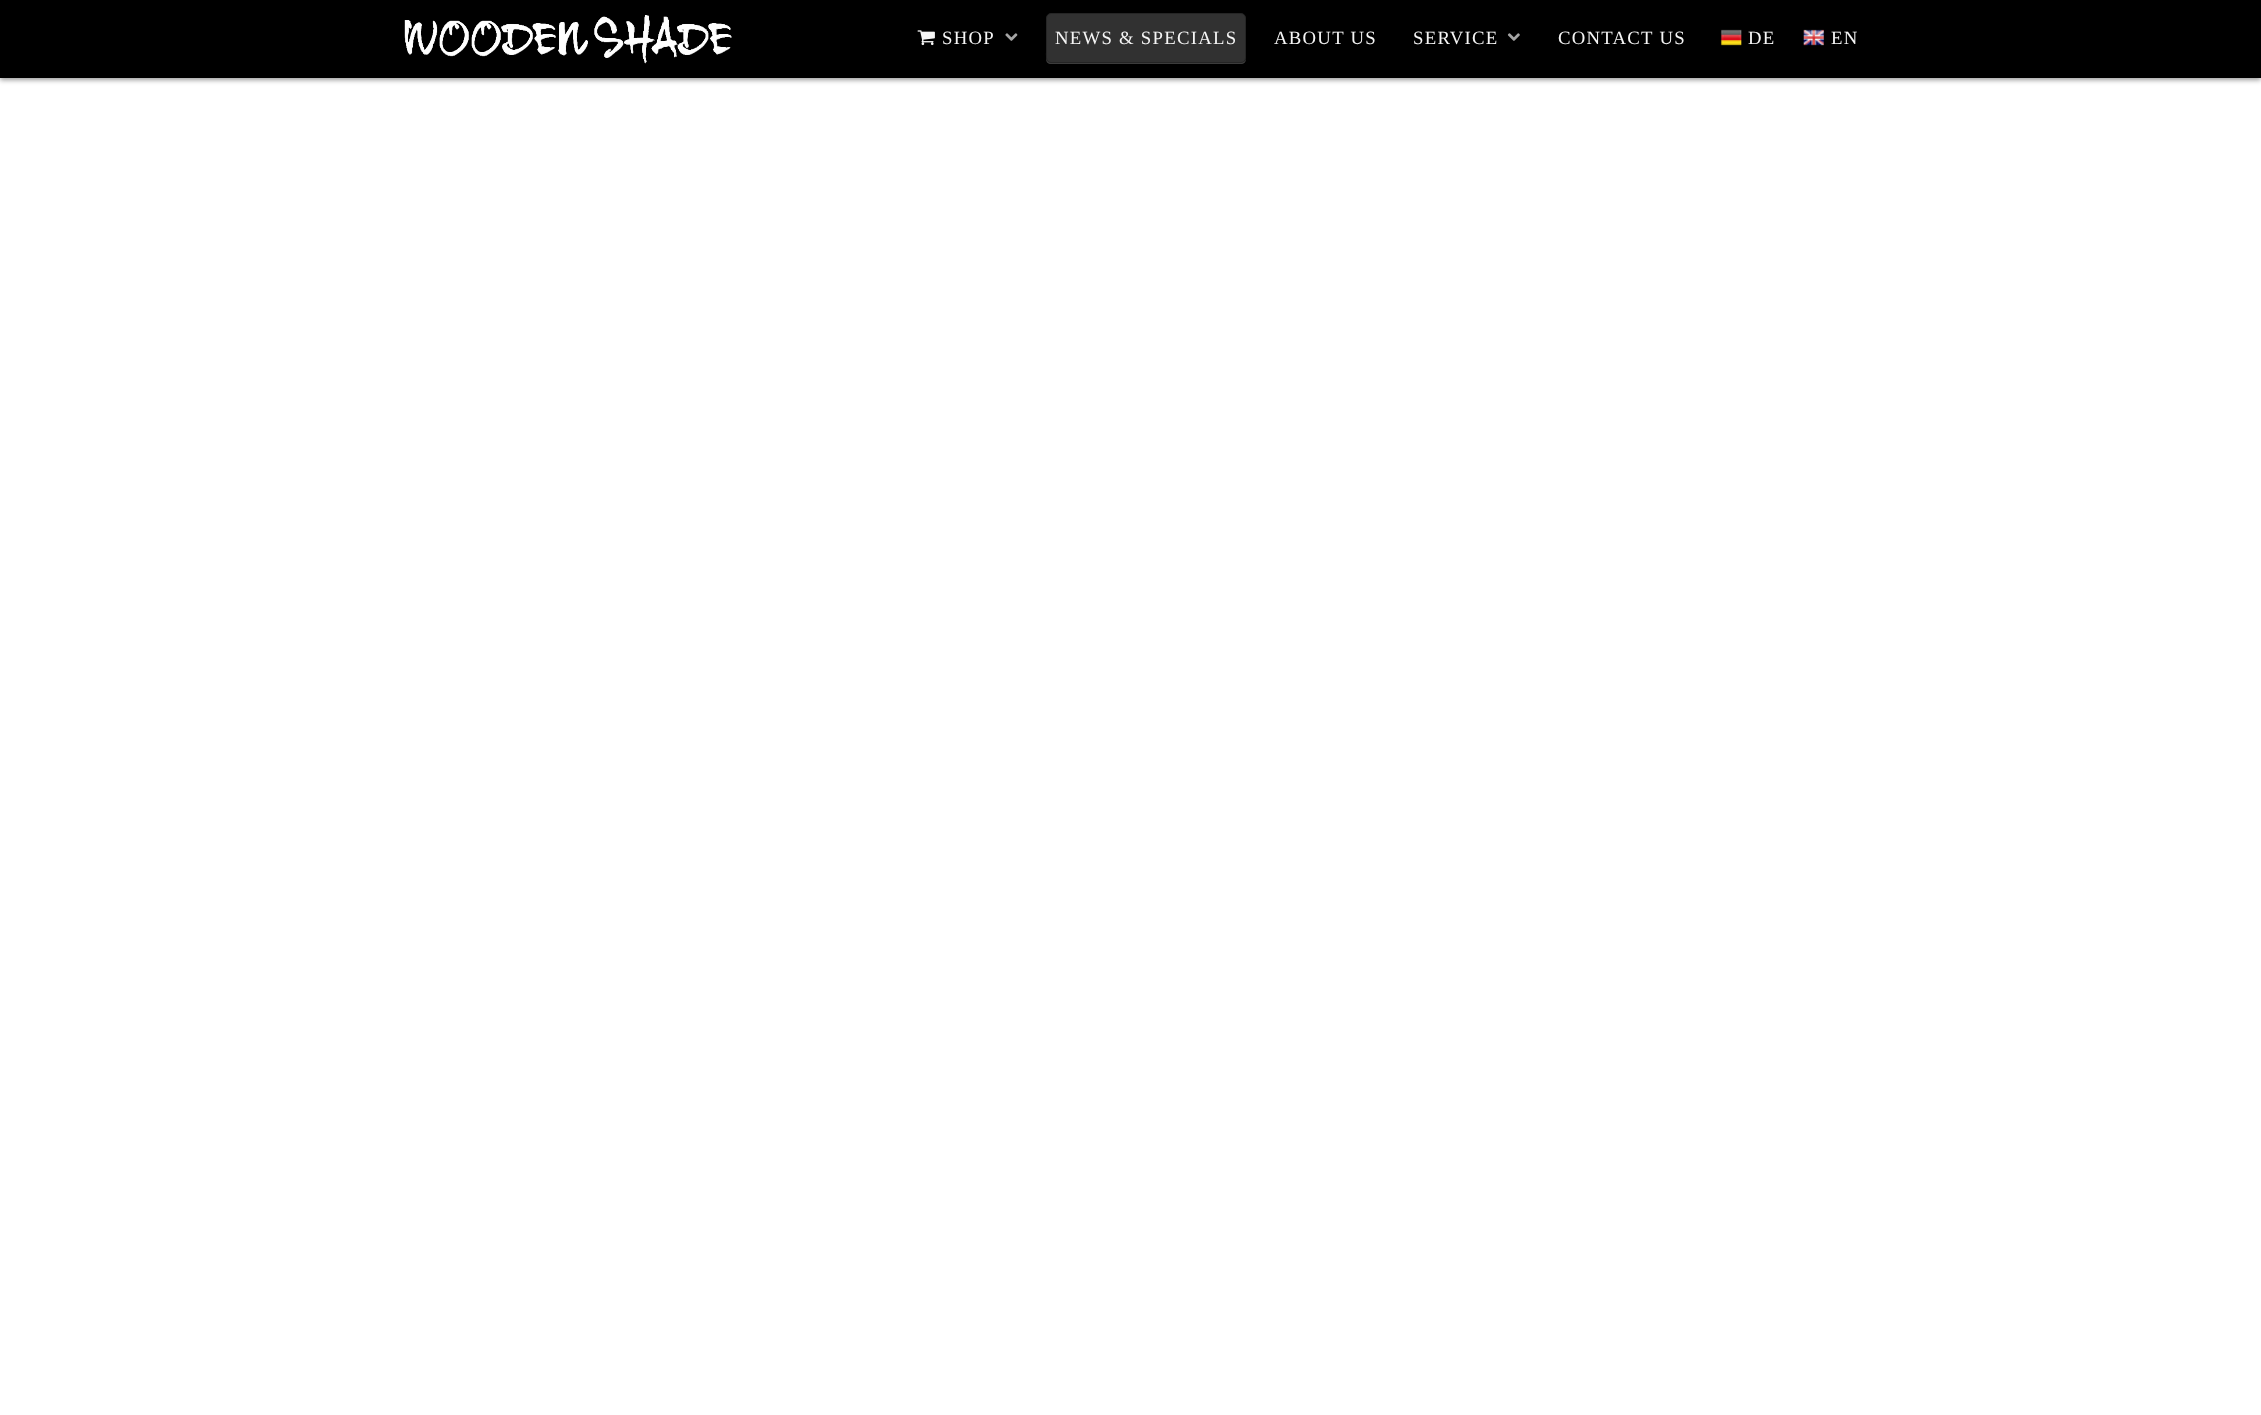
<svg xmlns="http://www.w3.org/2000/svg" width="2261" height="1415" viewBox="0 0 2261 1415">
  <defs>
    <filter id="blur1" x="-50%" y="-200%" width="200%" height="500%"><feGaussianBlur stdDeviation="2.5"/></filter>
  </defs>
  <rect width="100%" height="100%" fill="#ffffff"/>
  <rect x="0" y="3" width="2261" height="77" fill="#000000" fill-opacity="0.4" filter="url(#blur1)"/>
  <rect x="0" y="0" width="2261" height="78" fill="#000000"/>
  <image x="404" y="15" width="328" height="49" href="img1.png"/>
  <image x="917" y="30" width="18" height="16" href="img2.png"/>
  <text x="942" y="44" font-family="Liberation Serif" font-size="18.75" letter-spacing="1.25" fill="#f5f5f5">SHOP</text>
  <image x="1005" y="33" width="13" height="8" href="img3.png"/>
  <path d="M1046 17V59C1046 62 1048 64 1051 64H1241C1244 64 1246 62 1246 59C1245 61 1244 62 1242 62H1051C1045 62 1046 55 1046 51Z" fill="#3c3c3c"/>
  <rect x="1046.5" y="13.5" width="199" height="49" rx="4.5" fill="#313131" stroke="#252525"/>
  <text x="1055" y="44" font-family="Liberation Serif" font-size="18.75" letter-spacing="1.25" fill="#f5f5f5">NEWS &amp; SPECIALS</text>
  <text x="1274" y="44" font-family="Liberation Serif" font-size="18.75" letter-spacing="1.25" fill="#f5f5f5">ABOUT US</text>
  <text x="1413" y="44" font-family="Liberation Serif" font-size="18.75" letter-spacing="1.25" fill="#f5f5f5">SERVICE</text>
  <image x="1507" y="33" width="13" height="8" href="img4.png"/>
  <text x="1558" y="44" font-family="Liberation Serif" font-size="18.75" letter-spacing="1.25" fill="#f5f5f5">CONTACT US</text>
  <image x="1720" y="29" width="22" height="17" href="img5.png"/>
  <text x="1748" y="44" font-family="Liberation Serif" font-size="18.75" letter-spacing="1.25" fill="#f5f5f5">DE</text>
  <image x="1803" y="29" width="22" height="17" href="img6.png"/>
  <text x="1831" y="44" font-family="Liberation Serif" font-size="18.75" letter-spacing="1.25" fill="#f5f5f5">EN</text>
</svg>
